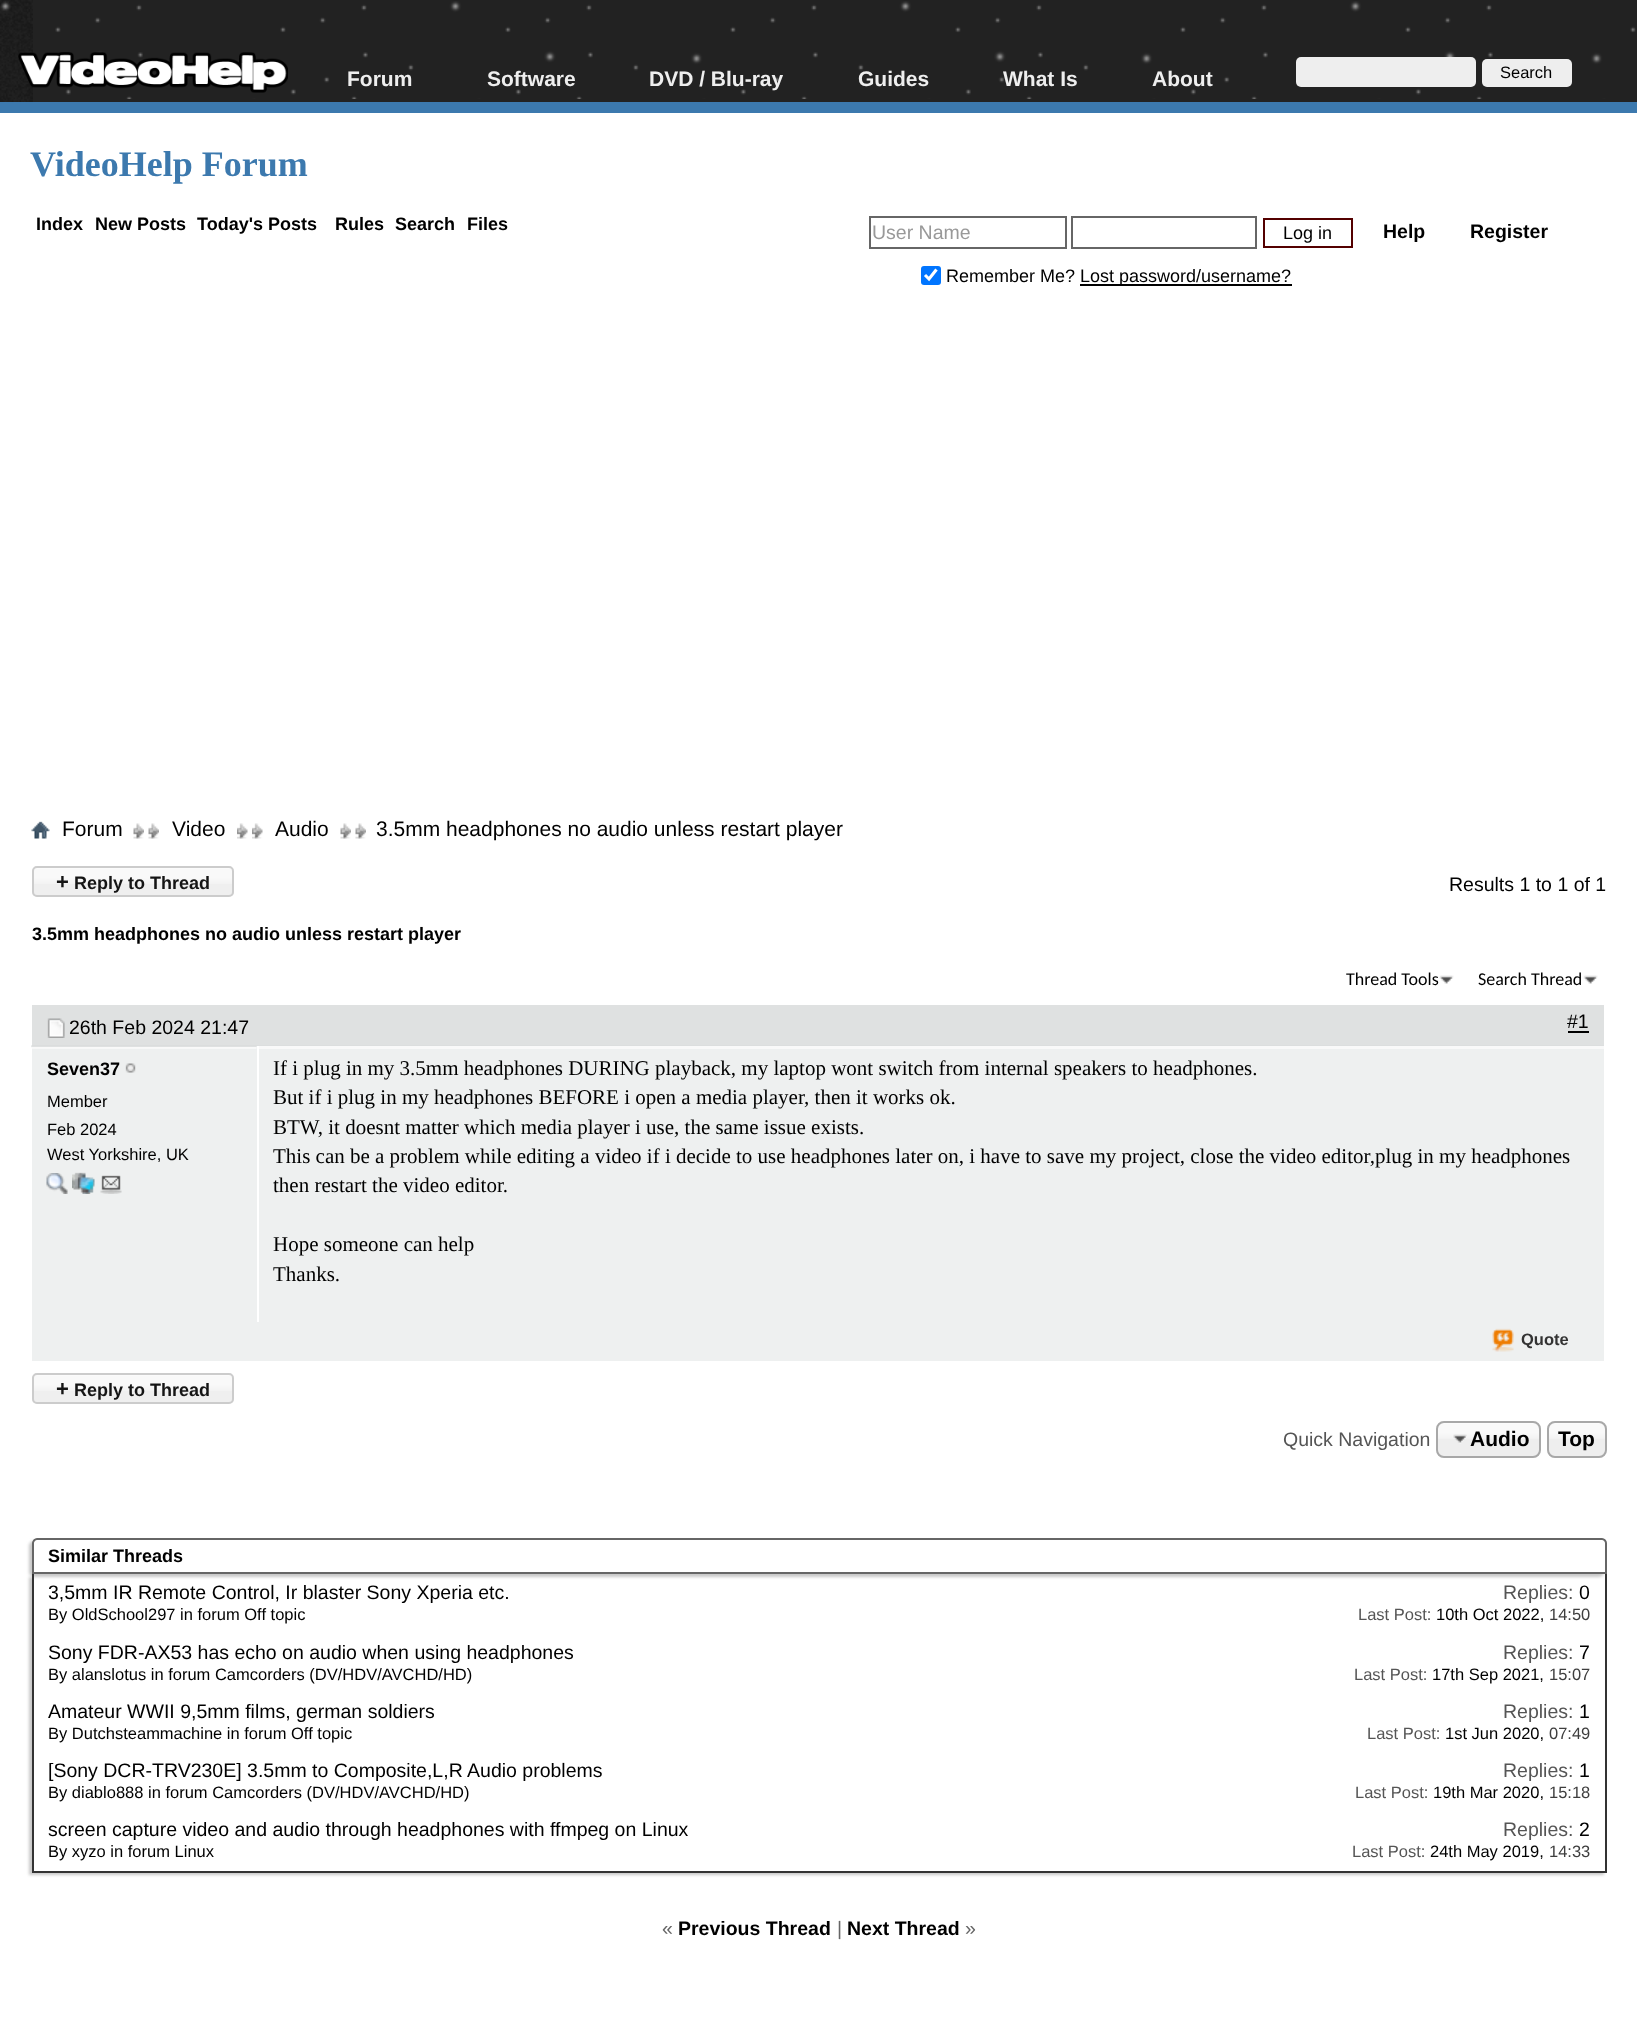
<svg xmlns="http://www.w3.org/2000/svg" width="1637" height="2037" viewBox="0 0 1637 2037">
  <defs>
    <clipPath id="clip1"><path d="M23 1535H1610V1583H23ZM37 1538H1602C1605 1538 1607 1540 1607 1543V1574H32V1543C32 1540 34 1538 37 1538Z" clip-rule="evenodd"/></clipPath>
    <filter id="blur1" x="-50%" y="-200%" width="200%" height="500%"><feGaussianBlur stdDeviation="1.5"/></filter>
    <clipPath id="clip2"><path d="M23 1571H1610V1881H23ZM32 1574H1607V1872H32Z" clip-rule="evenodd"/></clipPath>
  </defs>
  <rect width="100%" height="100%" fill="#222222"/>
  <image x="0" y="0" width="33" height="102" href="img2.png"/>
  <image x="0" y="1" width="1636" height="98" href="img1.png"/>
  <rect x="0" y="102" width="1637" height="11" fill="#3c79ae"/>
  <image x="18" y="52" width="270" height="41" href="img3.png"/>
  <text x="347" y="86" font-family="Liberation Sans" font-size="21" font-weight="bold" fill="#eeeeee">Forum</text>
  <text x="487" y="86" font-family="Liberation Sans" font-size="21" font-weight="bold" fill="#eeeeee">Software</text>
  <text x="649" y="86" font-family="Liberation Sans" font-size="21" font-weight="bold" fill="#eeeeee">DVD / Blu-ray</text>
  <text x="858" y="86" font-family="Liberation Sans" font-size="21" font-weight="bold" fill="#eeeeee">Guides</text>
  <text x="1003" y="86" font-family="Liberation Sans" font-size="21" font-weight="bold" fill="#eeeeee">What Is</text>
  <text x="1152" y="86" font-family="Liberation Sans" font-size="21" font-weight="bold" fill="#eeeeee">About</text>
  <rect x="1296" y="57" width="180" height="30" rx="5" fill="#eeeeee"/>
  <rect x="1482" y="59" width="90" height="28" rx="5" fill="#eeeeee"/>
  <text x="1500" y="78" font-family="Liberation Sans" font-size="16.5" fill="#000000">Search</text>
  <rect x="0" y="113" width="1637" height="1924" fill="#ffffff"/>
  <text x="30" y="176" font-family="Liberation Serif" font-size="36" font-weight="bold" fill="#3c79ae">VideoHelp Forum</text>
  <text x="36" y="230" font-family="Liberation Sans" font-size="18" font-weight="bold" fill="#000000">Index</text>
  <text x="95" y="230" font-family="Liberation Sans" font-size="18" font-weight="bold" fill="#000000">New Posts</text>
  <text x="197" y="230" font-family="Liberation Sans" font-size="18" font-weight="bold" fill="#000000">Today's Posts</text>
  <text x="335" y="230" font-family="Liberation Sans" font-size="18" font-weight="bold" fill="#000000">Rules</text>
  <text x="395" y="230" font-family="Liberation Sans" font-size="18" font-weight="bold" fill="#000000">Search</text>
  <text x="467" y="230" font-family="Liberation Sans" font-size="18" font-weight="bold" fill="#000000">Files</text>
  <rect x="870" y="217" width="196" height="31" fill="none" stroke="#666666" stroke-width="2"/>
  <text x="872" y="239" font-family="Liberation Sans" font-size="19.5" fill="#999999">User Name</text>
  <rect x="1072" y="217" width="184" height="31" fill="none" stroke="#666666" stroke-width="2"/>
  <rect x="1264" y="219" width="88" height="28" fill="none" stroke="#540000" stroke-width="2"/>
  <text x="1283" y="239" font-family="Liberation Sans" font-size="18" fill="#000000">Log in</text>
  <rect x="921" y="266" width="20" height="19" rx="3" fill="#0075ff"/>
  <path d="M925 275L929 279L936.5 269.5" fill="none" stroke="#ffffff" stroke-width="3.1"/>
  <text x="946" y="282" font-family="Liberation Sans" font-size="18" fill="#000000">Remember Me?</text>
  <rect x="1080" y="284" width="212" height="2" fill="#000000"/>
  <text x="1080" y="282" font-family="Liberation Sans" font-size="18" fill="#000000">Lost password/username?</text>
  <text x="1383" y="238" font-family="Liberation Sans" font-size="19.5" font-weight="bold" fill="#000000">Help</text>
  <text x="1470" y="238" font-family="Liberation Sans" font-size="19.5" font-weight="bold" fill="#000000">Register</text>
  <image x="31" y="821" width="19" height="18" href="img4.png"/>
  <image x="148" y="823" width="11" height="16" href="img5.png"/>
  <image x="133" y="823" width="11" height="16" href="img5.png"/>
  <text x="62" y="836" font-family="Liberation Sans" font-size="21" fill="#000000">Forum</text>
  <image x="252" y="823" width="11" height="16" href="img6.png"/>
  <image x="237" y="823" width="11" height="16" href="img6.png"/>
  <text x="172" y="836" font-family="Liberation Sans" font-size="21" fill="#000000">Video</text>
  <image x="355" y="823" width="11" height="16" href="img7.png"/>
  <image x="340" y="823" width="11" height="16" href="img5.png"/>
  <text x="275" y="836" font-family="Liberation Sans" font-size="21" fill="#000000">Audio</text>
  <text x="376" y="836" font-family="Liberation Sans" font-size="21" fill="#000000">3.5mm headphones no audio unless restart player</text>
  <rect x="32" y="866" width="202" height="31" rx="5" fill="#efefef"/>
  <image x="32" y="867" width="202" height="17" href="img8.png"/>
  <rect x="33" y="867" width="200" height="29" rx="4" fill="none" stroke="#cccccc" stroke-width="2"/>
  <text x="56" y="889" font-family="Liberation Sans" font-size="22" font-weight="bold" fill="#151515">+</text>
  <text x="74" y="889" font-family="Liberation Sans" font-size="18" font-weight="bold" fill="#151515">Reply to Thread</text>
  <text x="1449" y="891" font-family="Liberation Sans" font-size="19.5" fill="#000000">Results 1 to 1 of 1</text>
  <text x="32" y="940" font-family="Liberation Sans" font-size="18" font-weight="bold" fill="#000000">3.5mm headphones no audio unless restart player</text>
  <text x="1346" y="985" font-family="Carlito" font-size="18" fill="#000000">Thread Tools</text>
  <image x="1439" y="975" width="15" height="9" href="img9.png"/>
  <text x="1478" y="985" font-family="Carlito" font-size="18" fill="#000000">Search Thread</text>
  <image x="1583" y="975" width="15" height="9" href="img9.png"/>
  <rect x="32" y="1005" width="1572" height="41" fill="#dfe1e1"/>
  <image x="47" y="1018" width="18" height="20" href="img10.png"/>
  <text x="69" y="1034" font-family="Liberation Sans" font-size="19.5" fill="#000000">26th Feb 2024 21:47</text>
  <text x="1567" y="1028" font-family="Liberation Sans" font-size="19.5" fill="#000000">#1</text>
  <rect x="1568" y="1031" width="21" height="2" fill="#000000"/>
  <rect x="32" y="1218" width="1572" height="143" fill="#eef0f0"/>
  <image x="31" y="1045" width="1573" height="4" href="img11.png"/>
  <rect x="32" y="1046" width="225" height="172" fill="#eef0f0"/>
  <image x="31" y="1045" width="226" height="4" href="img12.png"/>
  <text x="47" y="1075" font-family="Liberation Sans" font-size="18" font-weight="bold" fill="#000000">Seven37</text>
  <image x="125" y="1063" width="11" height="10" href="img13.png"/>
  <text x="47" y="1107" font-family="Liberation Sans" font-size="16.5" fill="#000000">Member</text>
  <text x="47" y="1135" font-family="Liberation Sans" font-size="16.5" fill="#000000">Feb 2024</text>
  <text x="47" y="1160" font-family="Liberation Sans" font-size="16.5" fill="#000000">West Yorkshire, UK</text>
  <image x="46" y="1173" width="22" height="21" href="img14.png"/>
  <image x="72" y="1172" width="23" height="22" href="img15.png"/>
  <image x="100" y="1175" width="22" height="19" href="img16.png"/>
  <rect x="259" y="1049" width="1345" height="169" fill="#eef0f0"/>
  <rect x="257" y="1046" width="1347" height="3" fill="#f9f9f9"/>
  <rect x="257" y="1046" width="2" height="276" fill="#ffffff"/>
  <text x="273" y="1075" font-family="Liberation Serif" font-size="21" fill="#000000">If i plug in my 3.5mm headphones DURING playback, my laptop wont switch from internal speakers to headphones.</text>
  <text x="273" y="1104" font-family="Liberation Serif" font-size="21" fill="#000000">But if i plug in my headphones BEFORE i open a media player, then it works ok.</text>
  <text x="273" y="1134" font-family="Liberation Serif" font-size="21" fill="#000000">BTW, it doesnt matter which media player i use, the same issue exists.</text>
  <text x="273" y="1163" font-family="Liberation Serif" font-size="21" fill="#000000">This can be a problem while editing a video if i decide to use headphones later on, i have to save my project, close the video editor,plug in my headphones</text>
  <text x="273" y="1192" font-family="Liberation Serif" font-size="21" fill="#000000">then restart the video editor.</text>
  <text x="273" y="1251" font-family="Liberation Serif" font-size="21" fill="#000000">Hope someone can help</text>
  <text x="273" y="1281" font-family="Liberation Serif" font-size="21" fill="#000000">Thanks.</text>
  <image x="1492" y="1328" width="22" height="24" href="img17.png"/>
  <text x="1521" y="1345" font-family="Liberation Sans" font-size="16.5" font-weight="bold" fill="#333333">Quote</text>
  <rect x="32" y="1373" width="202" height="31" rx="5" fill="#efefef"/>
  <image x="32" y="1374" width="202" height="17" href="img18.png"/>
  <rect x="33" y="1374" width="200" height="29" rx="4" fill="none" stroke="#cccccc" stroke-width="2"/>
  <text x="56" y="1396" font-family="Liberation Sans" font-size="22" font-weight="bold" fill="#151515">+</text>
  <text x="74" y="1396" font-family="Liberation Sans" font-size="18" font-weight="bold" fill="#151515">Reply to Thread</text>
  <rect x="1436" y="1421" width="105" height="37" rx="8" fill="#eeeeee"/>
  <image x="1436" y="1422" width="104" height="17" href="img19.png"/>
  <rect x="1547" y="1421" width="60" height="37" rx="8" fill="#eeeeee"/>
  <image x="1547" y="1422" width="59" height="17" href="img20.png"/>
  <text x="1283" y="1446" font-family="Liberation Sans" font-size="19.5" fill="#555555">Quick Navigation</text>
  <rect x="1437" y="1422" width="103" height="35" rx="7" fill="none" stroke="#a8a8a8" stroke-width="2"/>
  <image x="1453" y="1434" width="14" height="10" href="img21.png"/>
  <text x="1470" y="1446" font-family="Liberation Sans" font-size="21" font-weight="bold" fill="#000000">Audio</text>
  <rect x="1548" y="1422" width="58" height="35" rx="7" fill="none" stroke="#a8a8a8" stroke-width="2"/>
  <text x="1558" y="1446" font-family="Liberation Sans" font-size="21" font-weight="bold" fill="#000000">Top</text>
  <g clip-path="url(#clip1)">
    <rect x="29" y="1541" width="1575" height="36" rx="5" fill="#c8c8c8" filter="url(#blur1)"/>
  </g>
  <path d="M37 1539H1602C1604 1539 1606 1541 1606 1543V1573H33V1543C33 1541 35 1539 37 1539Z" fill="none" stroke="#666666" stroke-width="2"/>
  <text x="48" y="1562" font-family="Liberation Sans" font-size="18" font-weight="bold" fill="#000000">Similar Threads</text>
  <g clip-path="url(#clip2)">
    <rect x="29" y="1577" width="1575" height="298" fill="#c8c8c8" filter="url(#blur1)"/>
  </g>
  <rect x="1605" y="1574" width="2" height="298" fill="#333333"/>
  <rect x="32" y="1871" width="1575" height="2" fill="#333333"/>
  <rect x="32" y="1574" width="2" height="298" fill="#333333"/>
  <text x="48" y="1599" font-family="Liberation Sans" font-size="19.5" fill="#000000">3,5mm IR Remote Control, Ir blaster Sony Xperia etc.</text>
  <text x="48" y="1620" font-family="Liberation Sans" font-size="16.5" fill="#000000">By OldSchool297 in forum Off topic</text>
  <text x="1503" y="1599" font-family="Liberation Sans" font-size="19.5" fill="#555555">Replies:</text>
  <text x="1579" y="1599" font-family="Liberation Sans" font-size="19.5" fill="#000000">0</text>
  <text x="1358" y="1620" font-family="Liberation Sans" font-size="16.5" fill="#555555">Last Post:</text>
  <text x="1436" y="1620" font-family="Liberation Sans" font-size="16.5" fill="#000000">10th Oct 2022,</text>
  <text x="1549" y="1620" font-family="Liberation Sans" font-size="16.5" fill="#3e3e3e">14:50</text>
  <text x="48" y="1659" font-family="Liberation Sans" font-size="19.5" fill="#000000">Sony FDR-AX53 has echo on audio when using headphones</text>
  <text x="48" y="1680" font-family="Liberation Sans" font-size="16.5" fill="#000000">By alanslotus in forum Camcorders (DV/HDV/AVCHD/HD)</text>
  <text x="1503" y="1659" font-family="Liberation Sans" font-size="19.5" fill="#555555">Replies:</text>
  <text x="1579" y="1659" font-family="Liberation Sans" font-size="19.5" fill="#000000">7</text>
  <text x="1354" y="1680" font-family="Liberation Sans" font-size="16.5" fill="#555555">Last Post:</text>
  <text x="1432" y="1680" font-family="Liberation Sans" font-size="16.5" fill="#000000">17th Sep 2021,</text>
  <text x="1549" y="1680" font-family="Liberation Sans" font-size="16.5" fill="#3e3e3e">15:07</text>
  <text x="48" y="1718" font-family="Liberation Sans" font-size="19.5" fill="#000000">Amateur WWII 9,5mm films, german soldiers</text>
  <text x="48" y="1739" font-family="Liberation Sans" font-size="16.5" fill="#000000">By Dutchsteammachine in forum Off topic</text>
  <text x="1503" y="1718" font-family="Liberation Sans" font-size="19.5" fill="#555555">Replies:</text>
  <text x="1579" y="1718" font-family="Liberation Sans" font-size="19.5" fill="#000000">1</text>
  <text x="1367" y="1739" font-family="Liberation Sans" font-size="16.5" fill="#555555">Last Post:</text>
  <text x="1445" y="1739" font-family="Liberation Sans" font-size="16.5" fill="#000000">1st Jun 2020,</text>
  <text x="1549" y="1739" font-family="Liberation Sans" font-size="16.5" fill="#3e3e3e">07:49</text>
  <text x="48" y="1777" font-family="Liberation Sans" font-size="19.5" fill="#000000">[Sony DCR-TRV230E] 3.5mm to Composite,L,R Audio problems</text>
  <text x="48" y="1798" font-family="Liberation Sans" font-size="16.5" fill="#000000">By diablo888 in forum Camcorders (DV/HDV/AVCHD/HD)</text>
  <text x="1503" y="1777" font-family="Liberation Sans" font-size="19.5" fill="#555555">Replies:</text>
  <text x="1579" y="1777" font-family="Liberation Sans" font-size="19.5" fill="#000000">1</text>
  <text x="1355" y="1798" font-family="Liberation Sans" font-size="16.5" fill="#555555">Last Post:</text>
  <text x="1433" y="1798" font-family="Liberation Sans" font-size="16.5" fill="#000000">19th Mar 2020,</text>
  <text x="1549" y="1798" font-family="Liberation Sans" font-size="16.5" fill="#3e3e3e">15:18</text>
  <text x="48" y="1836" font-family="Liberation Sans" font-size="19.5" fill="#000000">screen capture video and audio through headphones with ffmpeg on Linux</text>
  <text x="48" y="1857" font-family="Liberation Sans" font-size="16.5" fill="#000000">By xyzo in forum Linux</text>
  <text x="1503" y="1836" font-family="Liberation Sans" font-size="19.5" fill="#555555">Replies:</text>
  <text x="1579" y="1836" font-family="Liberation Sans" font-size="19.5" fill="#000000">2</text>
  <text x="1352" y="1857" font-family="Liberation Sans" font-size="16.5" fill="#555555">Last Post:</text>
  <text x="1430" y="1857" font-family="Liberation Sans" font-size="16.5" fill="#000000">24th May 2019,</text>
  <text x="1549" y="1857" font-family="Liberation Sans" font-size="16.5" fill="#3e3e3e">14:33</text>
  <text x="662" y="1935" font-family="Liberation Sans" font-size="19.5" fill="#666666">«</text>
  <text x="678" y="1935" font-family="Liberation Sans" font-size="19.5" font-weight="bold" fill="#000000">Previous Thread</text>
  <text x="837" y="1935" font-family="Liberation Sans" font-size="19.5" fill="#666666">|</text>
  <text x="847" y="1935" font-family="Liberation Sans" font-size="19.5" font-weight="bold" fill="#000000">Next Thread</text>
  <text x="965" y="1935" font-family="Liberation Sans" font-size="19.5" fill="#666666">»</text>
</svg>
